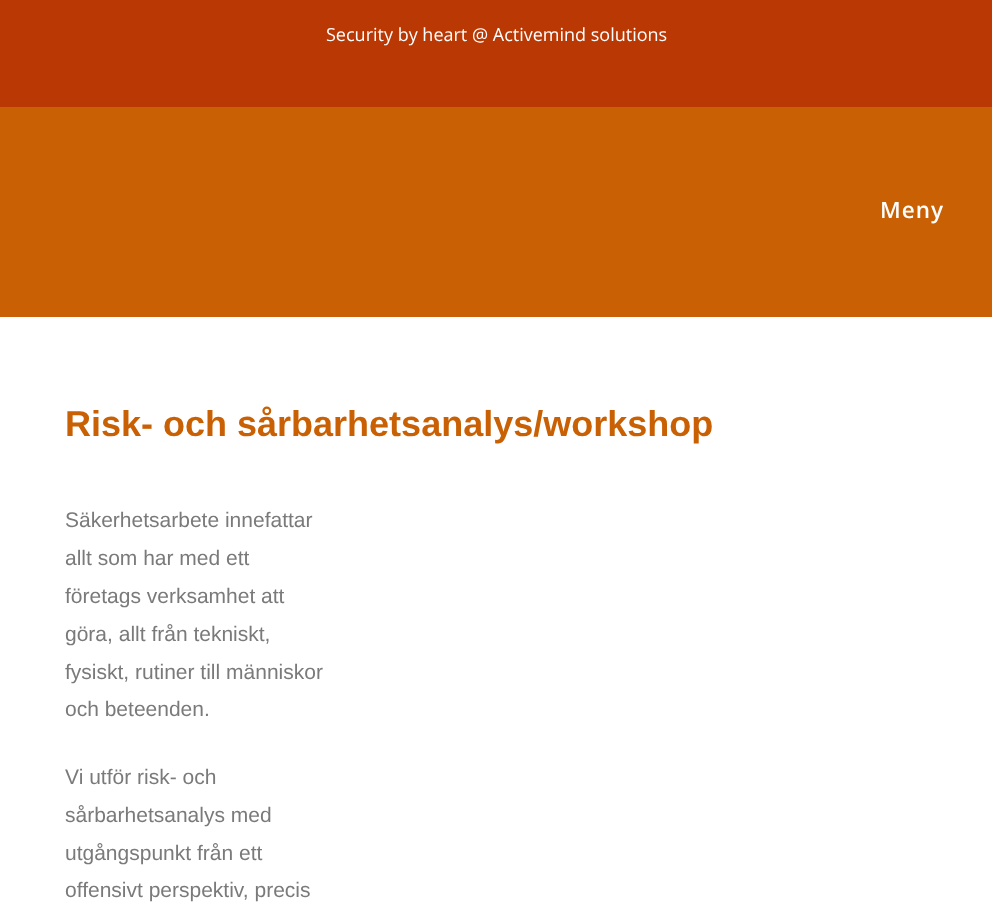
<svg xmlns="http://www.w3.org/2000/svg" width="992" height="924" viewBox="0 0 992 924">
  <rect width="100%" height="100%" fill="#ffffff"/>
  <rect x="0" y="0" width="992" height="107" fill="#ba3804"/>
  <text x="326" y="41" font-family="Open Sans" font-size="18" fill="#ffffff">Security by heart @ Activemind solutions</text>
  <rect x="0" y="107" width="992" height="210" fill="#c96104"/>
  <text x="880" y="218" font-family="Open Sans" font-size="22.5" font-weight="600" letter-spacing="1" fill="#ffffff">Meny</text>
  <text x="65" y="436" font-family="Liberation Sans" font-size="36" font-weight="bold" fill="#c96104">Risk- och sårbarhetsanalys/workshop</text>
  <text x="65" y="527" font-family="Liberation Sans" font-size="21" fill="#7a7a7a">Säkerhetsarbete innefattar</text>
  <text x="65" y="565" font-family="Liberation Sans" font-size="21" fill="#7a7a7a">allt som har med ett</text>
  <text x="65" y="603" font-family="Liberation Sans" font-size="21" fill="#7a7a7a">företags verksamhet att</text>
  <text x="65" y="641" font-family="Liberation Sans" font-size="21" fill="#7a7a7a">göra, allt från tekniskt,</text>
  <text x="65" y="679" font-family="Liberation Sans" font-size="21" fill="#7a7a7a">fysiskt, rutiner till människor</text>
  <text x="65" y="716" font-family="Liberation Sans" font-size="21" fill="#7a7a7a">och beteenden.</text>
  <text x="65" y="784" font-family="Liberation Sans" font-size="21" fill="#7a7a7a">Vi utför risk- och</text>
  <text x="65" y="822" font-family="Liberation Sans" font-size="21" fill="#7a7a7a">sårbarhetsanalys med</text>
  <text x="65" y="860" font-family="Liberation Sans" font-size="21" fill="#7a7a7a">utgångspunkt från ett</text>
  <text x="65" y="897" font-family="Liberation Sans" font-size="21" fill="#7a7a7a">offensivt perspektiv, precis</text>
</svg>
